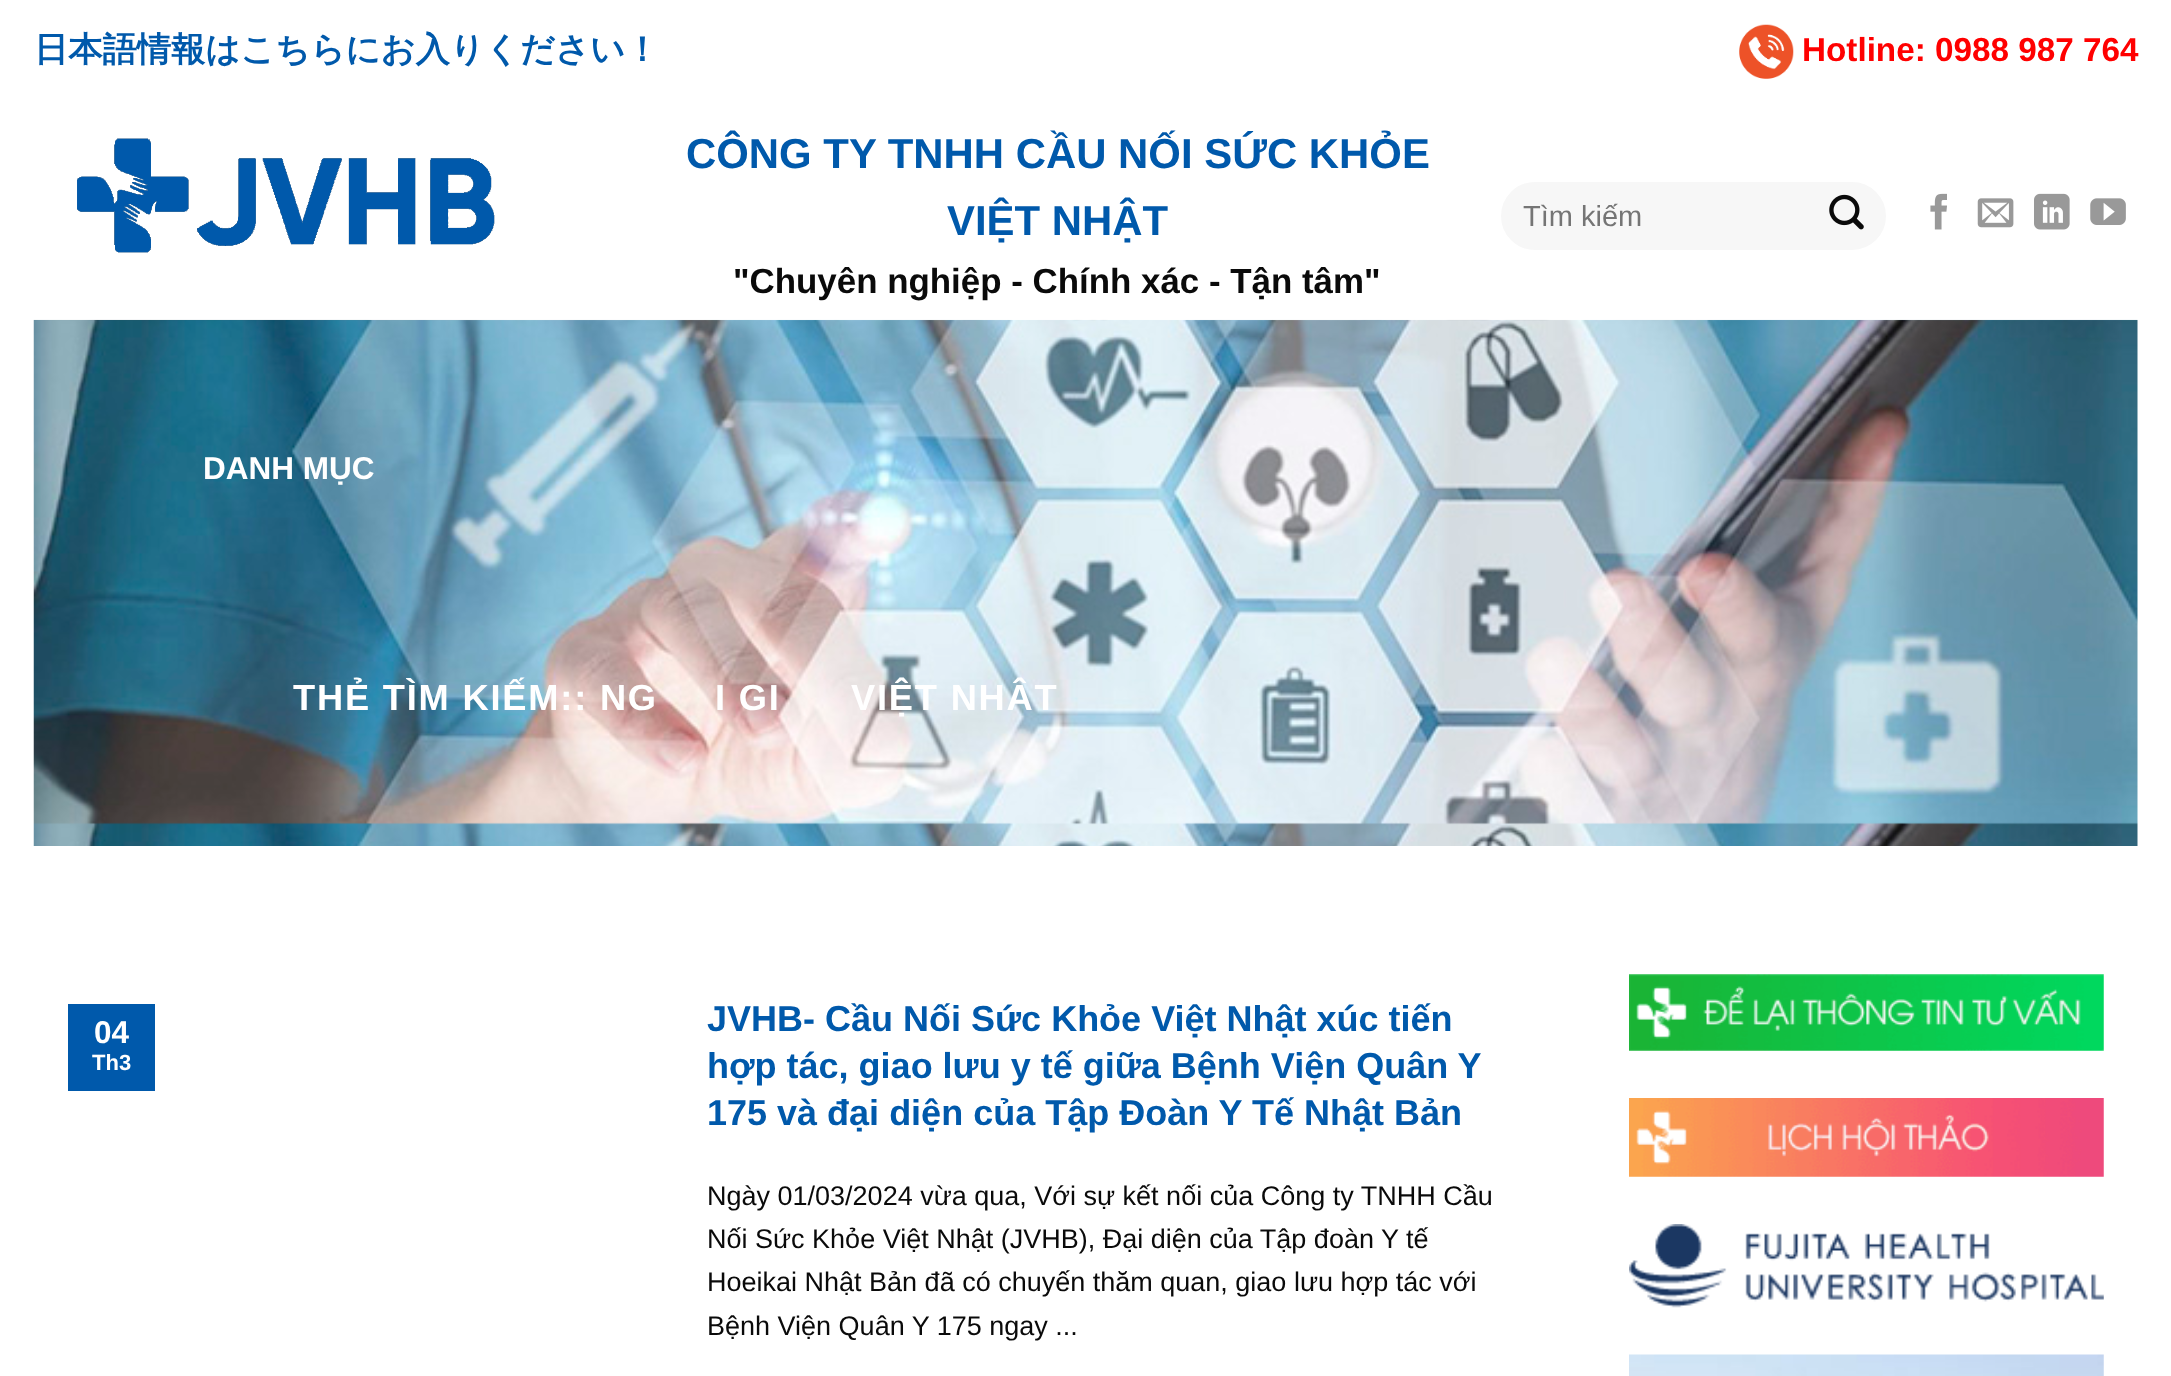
<svg xmlns="http://www.w3.org/2000/svg" width="2171" height="1376" viewBox="0 0 2171 1376">
  <rect width="100%" height="100%" fill="#ffffff"/>
  <text x="34" y="61" font-family="WenQuanYi Zen Hei" font-size="34.25" font-weight="bold" fill="#0059ab">日本語情報はこちらにお入りください！</text>
  <image x="1739" y="24" width="55" height="55" href="img1.png"/>
  <text x="1802" y="61" font-family="Liberation Sans" font-size="33.25" font-weight="bold" fill="#ff0000">Hotline: 0988 987 764</text>
  <image x="77" y="138" width="418" height="115" href="img2.png"/>
  <text x="686" y="168" font-family="Liberation Sans" font-size="41.9" font-weight="bold" fill="#0059ab">CÔNG TY TNHH CẦU NỐI SỨC KHỎE</text>
  <text x="947" y="235" font-family="Liberation Sans" font-size="41.9" font-weight="bold" fill="#0059ab">VIỆT NHẬT</text>
  <text x="733" y="293" font-family="Liberation Sans" font-size="34.9" font-weight="bold" fill="#0a0a0a">"Chuyên nghiệp - Chính xác - Tận tâm"</text>
  <rect x="1500" y="181" width="387" height="70" rx="35" fill="#f7f7f7" stroke="#ffffff" stroke-width="2"/>
  <text x="1523" y="226" font-family="Liberation Sans" font-size="29" fill="#757575">Tìm kiếm</text>
  <image x="1829" y="194" width="35" height="36" href="img3.png"/>
  <image x="1930" y="193" width="17" height="37" href="img4.png"/>
  <image x="1977" y="198" width="37" height="30" href="img5.png"/>
  <image x="2034" y="193" width="36" height="37" href="img6.png"/>
  <image x="2090" y="198" width="36" height="27" href="img7.png"/>
  <image x="33" y="319" width="2105" height="527" href="img8.png"/>
  <rect x="33" y="319" width="2105" height="1" fill="#ffffff" fill-opacity="0.9"/>
  <text x="203" y="479" font-family="Liberation Sans" font-size="31.5" font-weight="bold" fill="#ffffff">DANH MỤC</text>
  <text x="293" y="710" font-family="Liberation Sans" font-size="36.25" font-weight="bold" letter-spacing="1.8" fill="#ffffff">THẺ TÌM KIẾM:: NG</text>
  <text x="715" y="710" font-family="Liberation Sans" font-size="36.25" font-weight="bold" letter-spacing="1.8" fill="#ffffff">I GI</text>
  <text x="851" y="710" font-family="Liberation Sans" font-size="36.25" font-weight="bold" letter-spacing="1.8" fill="#ffffff">VIỆT NHÂT</text>
  <rect x="68" y="1004" width="87" height="87" fill="#0059ab"/>
  <text x="94" y="1043" font-family="Liberation Sans" font-size="31.5" font-weight="bold" fill="#ffffff">04</text>
  <text x="92" y="1070" font-family="Liberation Sans" font-size="22" font-weight="bold" fill="#ffffff">Th3</text>
  <text x="707" y="1031" font-family="Liberation Sans" font-size="36" font-weight="bold" fill="#0059ab">JVHB- Cầu Nối Sức Khỏe Việt Nhật xúc tiến</text>
  <text x="707" y="1078" font-family="Liberation Sans" font-size="36" font-weight="bold" fill="#0059ab">hợp tác, giao lưu y tế giữa Bệnh Viện Quân Y</text>
  <text x="707" y="1125" font-family="Liberation Sans" font-size="36" font-weight="bold" fill="#0059ab">175 và đại diện của Tập Đoàn Y Tế Nhật Bản</text>
  <text x="707" y="1205" font-family="Liberation Sans" font-size="27" fill="#0a0a0a">Ngày 01/03/2024 vừa qua, Với sự kết nối của Công ty TNHH Cầu</text>
  <text x="707" y="1248" font-family="Liberation Sans" font-size="27" fill="#0a0a0a">Nối Sức Khỏe Việt Nhật (JVHB), Đại diện của Tập đoàn Y tế</text>
  <text x="707" y="1291" font-family="Liberation Sans" font-size="27" fill="#0a0a0a">Hoeikai Nhật Bản đã có chuyến thăm quan, giao lưu hợp tác với</text>
  <text x="707" y="1335" font-family="Liberation Sans" font-size="27" fill="#0a0a0a">Bệnh Viện Quân Y 175 ngay ...</text>
  <image x="1629" y="974" width="475" height="77" href="img9.png"/>
  <image x="1629" y="1098" width="475" height="79" href="img10.png"/>
  <image x="1629" y="1224" width="475" height="84" href="img11.png"/>
  <image x="1629" y="1354" width="475" height="22" href="img12.png"/>
</svg>
